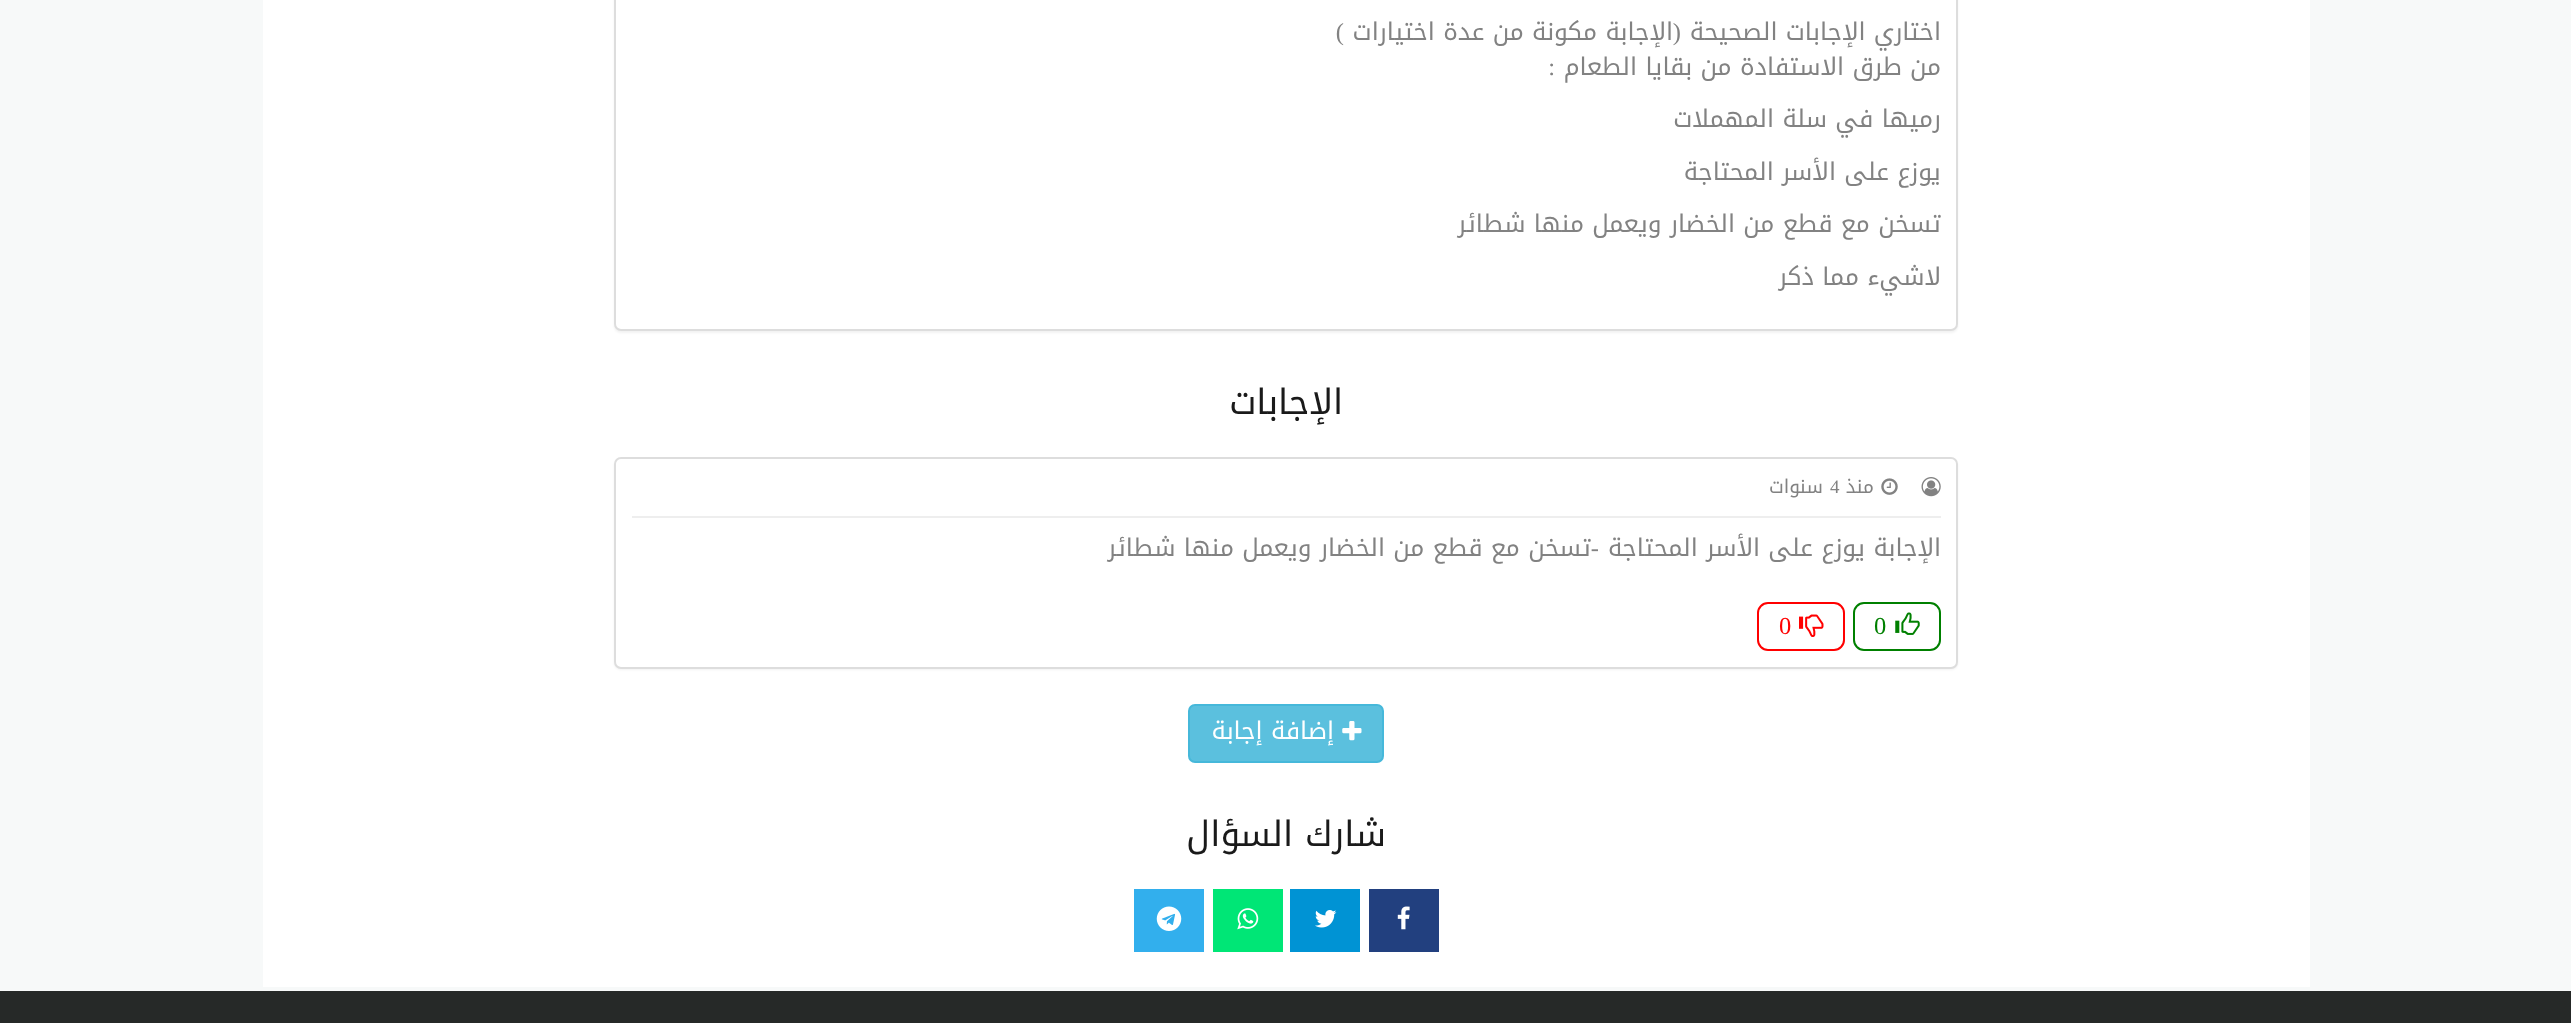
<svg xmlns="http://www.w3.org/2000/svg" width="2571" height="1023" viewBox="0 0 2571 1023">
  <defs>
    <filter id="blur1" x="-50%" y="-200%" width="200%" height="500%"><feGaussianBlur stdDeviation="1"/></filter>
  </defs>
  <rect width="100%" height="100%" fill="#f7f9f9"/>
  <rect x="263" y="0" width="2047" height="987" fill="#ffffff"/>
  <rect x="614" y="-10" width="1344" height="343" rx="7" fill="#000000" fill-opacity="0.05" filter="url(#blur1)"/>
  <rect x="615" y="-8" width="1342" height="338" rx="6" fill="#ffffff" stroke="#dddddd" stroke-width="2"/>
  <text x="1941" y="40" font-family="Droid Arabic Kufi" font-size="24.5" direction="rtl" fill="#828282">اختاري الإجابات الصحيحة</text>
  <text x="1681" y="40" font-family="Liberation Serif" font-size="24.5" direction="rtl" fill="#828282">(</text>
  <text x="1673" y="40" font-family="Droid Arabic Kufi" font-size="24.5" direction="rtl" fill="#828282">الإجابة مكونة من عدة اختيارات</text>
  <text x="1344" y="40" font-family="Liberation Serif" font-size="24.5" direction="rtl" fill="#828282">)</text>
  <text x="1941" y="75" font-family="Droid Arabic Kufi" font-size="24.5" direction="rtl" fill="#828282">من طرق الاستفادة من بقايا الطعام</text>
  <text x="1555" y="75" font-family="Liberation Serif" font-size="24.5" direction="rtl" fill="#828282">:</text>
  <text x="1941" y="127" font-family="Droid Arabic Kufi" font-size="24.5" direction="rtl" fill="#828282">رميها في سلة المهملات</text>
  <text x="1941" y="180" font-family="Droid Arabic Kufi" font-size="24.5" direction="rtl" fill="#828282">يوزع على الأسر المحتاجة</text>
  <text x="1941" y="232" font-family="Droid Arabic Kufi" font-size="24.5" direction="rtl" fill="#828282">تسخن مع قطع من الخضار ويعمل منها شطائر</text>
  <text x="1941" y="285" font-family="Droid Arabic Kufi" font-size="24.5" direction="rtl" fill="#828282">لاشيء مما ذكر</text>
  <text x="1343" y="414" font-family="Droid Arabic Kufi" font-size="35" direction="rtl" fill="#1a1a1a">الإجابات</text>
  <rect x="614" y="459" width="1344" height="211" rx="7" fill="#000000" fill-opacity="0.05" filter="url(#blur1)"/>
  <rect x="615" y="458" width="1342" height="210" rx="6" fill="#ffffff" stroke="#dddddd" stroke-width="2"/>
  <image x="1921" y="477" width="20" height="20" href="img1.png"/>
  <image x="1881" y="478" width="17" height="17" href="img2.png"/>
  <text x="1874" y="493" font-family="Droid Arabic Kufi" font-size="19" direction="rtl" fill="#828282">منذ</text>
  <text x="1830" y="493" font-family="Liberation Serif" font-size="19" fill="#828282">4</text>
  <text x="1823" y="493" font-family="Droid Arabic Kufi" font-size="19" direction="rtl" fill="#828282">سنوات</text>
  <rect x="632" y="516" width="1309" height="2" fill="#eeeeee"/>
  <text x="1941" y="556" font-family="Droid Arabic Kufi" font-size="24.5" direction="rtl" fill="#828282">الإجابة يوزع على الأسر المحتاجة</text>
  <text x="1599" y="556" font-family="Liberation Serif" font-size="24.5" direction="rtl" fill="#828282">-</text>
  <text x="1591" y="556" font-family="Droid Arabic Kufi" font-size="24.5" direction="rtl" fill="#828282">تسخن مع قطع من الخضار ويعمل منها شطائر</text>
  <rect x="1854" y="603" width="86" height="47" rx="10" fill="none" stroke="#008000" stroke-width="2"/>
  <image x="1895" y="612" width="25" height="23" href="img3.png"/>
  <text x="1874" y="634" font-family="Liberation Serif" font-size="24.5" fill="#008000">0</text>
  <rect x="1758" y="603" width="86" height="47" rx="10" fill="none" stroke="#ff0000" stroke-width="2"/>
  <image x="1799" y="614" width="25" height="23" href="img4.png"/>
  <text x="1779" y="634" font-family="Liberation Serif" font-size="24.5" fill="#ff0000">0</text>
  <rect x="1189" y="705" width="194" height="57" rx="6" fill="#5bc0de" stroke="#46b8da" stroke-width="2"/>
  <image x="1342" y="721" width="20" height="20" href="img5.png"/>
  <text x="1334" y="739" font-family="Droid Arabic Kufi" font-size="24.5" direction="rtl" fill="#ffffff">إضافة إجابة</text>
  <text x="1386" y="846" font-family="Droid Arabic Kufi" font-size="35" direction="rtl" fill="#1a1a1a">شارك السؤال</text>
  <rect x="1369" y="889" width="70" height="63" fill="#22407f"/>
  <image x="1397" y="906" width="13" height="24" href="img6.png"/>
  <rect x="1290" y="889" width="70" height="63" fill="#0093d4"/>
  <image x="1315" y="910" width="22" height="18" href="img7.png"/>
  <rect x="1213" y="889" width="70" height="63" fill="#00e676"/>
  <image x="1237" y="908" width="22" height="22" href="img8.png"/>
  <rect x="1134" y="889" width="70" height="63" fill="#32afed"/>
  <image x="1156" y="906" width="26" height="25" href="img9.png"/>
  <rect x="0" y="991" width="2571" height="32" fill="#262928"/>
</svg>
